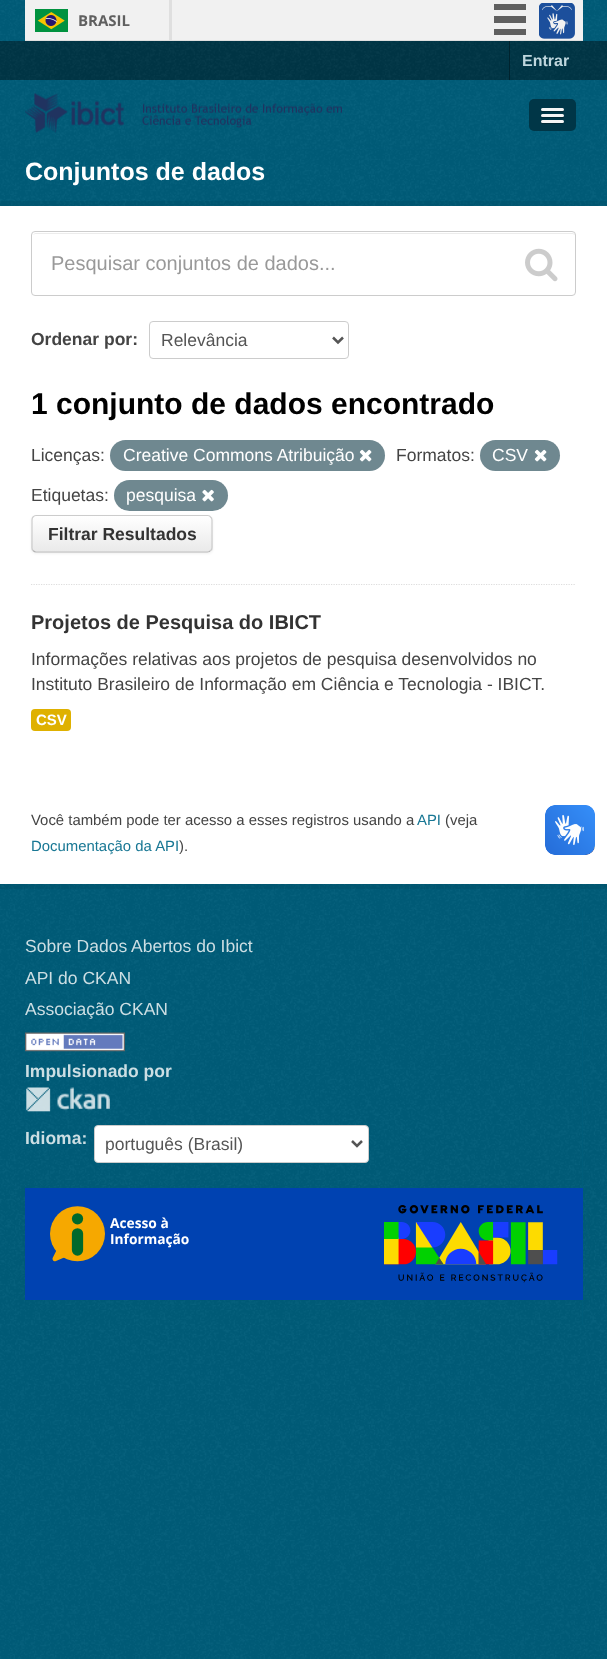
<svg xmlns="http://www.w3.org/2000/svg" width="607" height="1659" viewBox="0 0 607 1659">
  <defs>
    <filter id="blur1" x="-50%" y="-200%" width="200%" height="500%"><feGaussianBlur stdDeviation="1"/></filter>
    <clipPath id="clip1"><rect x="31" y="515" width="182" height="38" rx="5"/></clipPath>
    <linearGradient id="g1" gradientUnits="userSpaceOnUse" x1="122" y1="516" x2="122" y2="551"><stop offset="0" stop-color="#ffffff"/><stop offset="1" stop-color="#eaeaea"/></linearGradient>
  </defs>
  <rect width="100%" height="100%" fill="#005d7a"/>
  <image x="0" y="0" width="607" height="1659" href="img1.png"/>
  <rect x="25" y="0" width="558" height="40" fill="#f1f1f1"/>
  <rect x="25" y="40" width="558" height="1" fill="#dfdfdf"/>
  <rect x="169" y="0" width="3" height="40" fill="#dfdfdf"/>
  <image x="35" y="9" width="33" height="23" href="img2.png"/>
  <text x="78" y="26" font-family="Open Sans" font-size="15" font-weight="bold" fill="#606060">BRASIL</text>
  <rect x="494" y="4" width="32" height="6" fill="#606060"/>
  <rect x="494" y="16" width="32" height="7" fill="#606060"/>
  <rect x="494" y="29" width="32" height="6" fill="#606060"/>
  <image x="539" y="3" width="36" height="36" href="img3.png"/>
  <rect x="0" y="41" width="607" height="39" fill="#003647"/>
  <image x="0" y="41" width="607" height="39" href="img4.png"/>
  <rect x="509" y="41" width="1" height="39" fill="#00232e"/>
  <text x="522" y="66" font-family="Liberation Sans" font-size="16" font-weight="bold" fill="#bfd7de">Entrar</text>
  <rect x="0" y="80" width="607" height="69" fill="#005d7a"/>
  <image x="0" y="80" width="607" height="69" href="img5.png"/>
  <image x="25" y="93" width="317" height="40" href="img6.png"/>
  <rect x="529" y="99" width="47" height="32" rx="5" fill="#003647"/>
  <path d="M541.5 109.5L541 111C541.5 113 545 112 546 112H559C560 112 563.5 113 564 111L563.5 109.5L562.5 110H542.5Z" fill="#002935"/>
  <rect x="541" y="108" width="23" height="3" rx="1.5" fill="#f5f5f5"/>
  <path d="M541.5 115.5L541 117C541.5 119 545 118 546 118H559C560 118 563.5 119 564 117L563.5 115.5C563.5 116 563 116 562.5 116H542.5C542 116 541.5 116 541.5 115.5Z" fill="#002935"/>
  <rect x="541" y="114" width="23" height="3" rx="1.5" fill="#f5f5f5"/>
  <path d="M541.5 121.5C539 124.5 545.5 124 546 124H559C559.5 124 566 124.5 563.5 121.5C563.5 122 563 122.5 562.5 122.5H542.5C542 122.5 541.5 122 541.5 121.5Z" fill="#002935"/>
  <rect x="541" y="120" width="23" height="3" rx="1.5" fill="#f5f5f5"/>
  <text x="25" y="180" font-family="Liberation Sans" font-size="25" font-weight="bold" fill="#ffffff">Conjuntos de dados</text>
  <rect x="-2.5" y="203.5" width="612" height="683" fill="none" stroke="#000000" stroke-opacity="0.05" stroke-width="5"/>
  <rect x="0" y="206" width="607" height="678" fill="#ffffff"/>
  <path d="M31 584.5H576" fill="none" stroke="#dddddd" stroke-width="1.2" stroke-dasharray="1.25 1.25"/>
  <path d="M35 234H572C574 234 575 235 575 236C575 234 574 233 572 233H36C34 233 34 234 33 235Z" fill="#ececec"/>
  <rect x="31.5" y="231.5" width="544" height="64" rx="3.5" fill="none" stroke="#cccccc"/>
  <text x="51" y="270" font-family="Liberation Sans" font-size="20" fill="#999999">Pesquisar conjuntos de dados...</text>
  <image x="525" y="248" width="33" height="34" href="img7.png"/>
  <text x="31" y="345" font-family="Liberation Sans" font-size="17.5" font-weight="bold" fill="#444444">Ordenar por:</text>
  <rect x="149.5" y="321.5" width="199" height="37" rx="3.5" fill="none" stroke="#cccccc"/>
  <path d="M333 337.5L338 342.5L343 337.5" fill="none" stroke="#555555" stroke-width="2.5"/>
  <text x="161" y="346" font-family="Liberation Sans" font-size="17.5" fill="#555555">Relevância</text>
  <text x="31" y="414" font-family="Liberation Sans" font-size="30" font-weight="bold" fill="#000000">1 conjunto de dados encontrado</text>
  <text x="31" y="461" font-family="Liberation Sans" font-size="17.5" fill="#444444">Licenças:</text>
  <rect x="110" y="440" width="275" height="31" rx="15.5" fill="#6f8890"/>
  <text x="123" y="461" font-family="Liberation Sans" font-size="17.5" fill="#ffffff">Creative Commons Atribuição</text>
  <image x="359" y="449" width="13" height="13" href="img8.png"/>
  <text x="396" y="461" font-family="Liberation Sans" font-size="17.5" fill="#444444">Formatos:</text>
  <rect x="480" y="440" width="80" height="31" rx="15.5" fill="#6f8890"/>
  <text x="492" y="461" font-family="Liberation Sans" font-size="17.5" fill="#ffffff">CSV</text>
  <image x="534" y="449" width="13" height="13" href="img8.png"/>
  <text x="31" y="501" font-family="Liberation Sans" font-size="17.5" fill="#444444">Etiquetas:</text>
  <rect x="114" y="480" width="114" height="31" rx="15.5" fill="#6f8890"/>
  <text x="126" y="501" font-family="Liberation Sans" font-size="17.5" fill="#ffffff">pesquisa</text>
  <image x="202" y="489" width="12" height="13" href="img9.png"/>
  <rect x="31" y="516" width="182" height="38" rx="5" fill="#000000" fill-opacity="0.05" filter="url(#blur1)"/>
  <rect x="31" y="515" width="182" height="38" rx="5" fill="#f7f7f7"/>
  <g clip-path="url(#clip1)">
    <rect x="31" y="516" width="182" height="35" fill="url(#g1)"/>
  </g>
  <path d="M210.5 550.5C210 551.5 208.5 552 207.5 552H36C35 552 34 551.5 33 550.5" fill="none" stroke="#b3b3b3" stroke-width="1.2"/>
  <path d="M33 550.5C32.5 550 32 548.5 32 547.5V520C32 519 32.5 517.5 33 517C34 516 35 515.5 36 515.5H207.5C208.5 515.5 210 516 210.5 517C211.5 517.5 212 519 212 520V547.5C212 548.5 211.5 550 210.5 550.5" fill="none" stroke="#cccccc" stroke-width="1.2"/>
  <text x="48" y="540" font-family="Liberation Sans" font-size="17.5" font-weight="bold" fill="#333333">Filtrar Resultados</text>
  <text x="31" y="629" font-family="Liberation Sans" font-size="20" font-weight="bold" fill="#333333">Projetos de Pesquisa do IBICT</text>
  <text x="31" y="665" font-family="Liberation Sans" font-size="17.5" fill="#444444">Informações relativas aos projetos de pesquisa desenvolvidos no</text>
  <text x="31" y="690" font-family="Liberation Sans" font-size="17.5" fill="#444444">Instituto Brasileiro de Informação em Ciência e Tecnologia - IBICT.</text>
  <rect x="31" y="709" width="40" height="22" rx="4" fill="#dfb100"/>
  <text x="36" y="725" font-family="Liberation Sans" font-size="15" font-weight="bold" fill="#ffffff">CSV</text>
  <text x="31" y="825" font-family="Liberation Sans" font-size="14.9" fill="#444444">Você também pode ter acesso a esses registros usando a</text>
  <text x="417" y="825" font-family="Liberation Sans" font-size="14.9" fill="#187794">API</text>
  <text x="445" y="825" font-family="Liberation Sans" font-size="14.9" fill="#444444">(veja</text>
  <text x="31" y="851" font-family="Liberation Sans" font-size="14.9" fill="#187794">Documentação da API</text>
  <text x="179" y="851" font-family="Liberation Sans" font-size="14.9" fill="#444444">).</text>
  <image x="545" y="805" width="50" height="50" href="img10.png"/>
  <image x="545" y="805" width="50" height="50" href="img11.png"/>
  <rect x="25" y="909" width="558" height="416" fill="#005d7a"/>
  <image x="25" y="909" width="557" height="416" href="img12.png"/>
  <text x="25" y="952" font-family="Liberation Sans" font-size="17.5" fill="#ccdee3">Sobre Dados Abertos do Ibict</text>
  <text x="25" y="984" font-family="Liberation Sans" font-size="17.5" fill="#ccdee3">API do CKAN</text>
  <text x="25" y="1015" font-family="Liberation Sans" font-size="17.5" fill="#ccdee3">Associação CKAN</text>
  <image x="25" y="1032" width="100" height="20" href="img13.png"/>
  <text x="25" y="1077" font-family="Liberation Sans" font-size="17.5" font-weight="bold" fill="#ccdee3">Impulsionado por</text>
  <image x="26" y="1087" width="84" height="25" href="img14.png"/>
  <text x="25" y="1144" font-family="Liberation Sans" font-size="17.5" font-weight="bold" fill="#ccdee3">Idioma:</text>
  <rect x="94.5" y="1125.5" width="274" height="37" rx="3.5" fill="#ffffff" stroke="#cccccc"/>
  <path d="M352 1141L357 1146L362 1141" fill="none" stroke="#555555" stroke-width="2.5"/>
  <text x="105" y="1150" font-family="Liberation Sans" font-size="17.5" fill="#555555">português (Brasil)</text>
  <rect x="25" y="1188" width="558" height="112" fill="#0042b1"/>
  <image x="50" y="1206" width="139" height="56" href="img15.png"/>
  <image x="384" y="1205" width="174" height="78" href="img16.png"/>
</svg>
